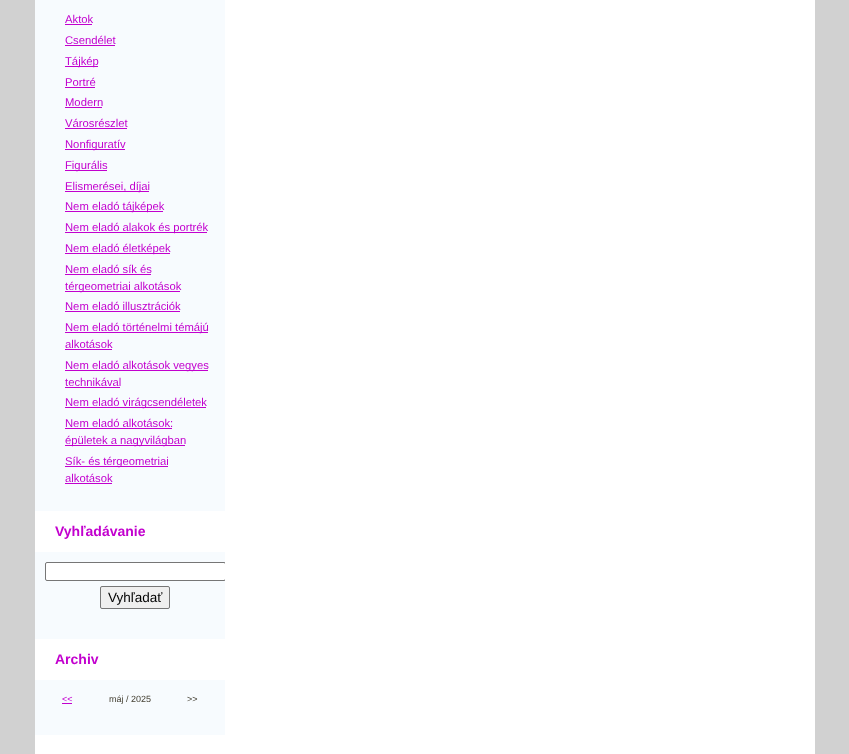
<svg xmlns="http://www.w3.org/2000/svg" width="849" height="754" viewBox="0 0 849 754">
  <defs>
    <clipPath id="clip1"><rect x="35" y="0" width="190" height="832"/></clipPath>
  </defs>
  <rect width="100%" height="100%" fill="#d1d1d1"/>
  <rect x="225" y="0" width="590" height="754" fill="#ffffff"/>
  <rect x="35" y="0" width="190" height="735" fill="#f7fbfe"/>
  <text x="65" y="23" font-family="Liberation Sans" font-size="11.25" fill="#c200ce">Aktok</text>
  <rect x="65" y="24" width="27" height="1" fill="#c200ce"/>
  <text x="65" y="44" font-family="Liberation Sans" font-size="11.25" fill="#c200ce">Csendélet</text>
  <rect x="65" y="45" width="50" height="1" fill="#c200ce"/>
  <rect x="65" y="66" width="33" height="1" fill="#c200ce"/>
  <text x="65" y="65" font-family="Liberation Sans" font-size="11.25" fill="#c200ce">Tájkép</text>
  <text x="65" y="86" font-family="Liberation Sans" font-size="11.25" fill="#c200ce">Portré</text>
  <rect x="65" y="87" width="30" height="1" fill="#c200ce"/>
  <text x="65" y="106" font-family="Liberation Sans" font-size="11.25" fill="#c200ce">Modern</text>
  <rect x="65" y="107" width="37" height="1" fill="#c200ce"/>
  <text x="65" y="127" font-family="Liberation Sans" font-size="11.25" fill="#c200ce">Városrészlet</text>
  <rect x="65" y="128" width="62" height="1" fill="#c200ce"/>
  <rect x="65" y="149" width="60" height="1" fill="#c200ce"/>
  <text x="65" y="148" font-family="Liberation Sans" font-size="11.25" fill="#c200ce">Nonfiguratív</text>
  <rect x="65" y="170" width="42" height="1" fill="#c200ce"/>
  <text x="65" y="169" font-family="Liberation Sans" font-size="11.25" fill="#c200ce">Figurális</text>
  <rect x="65" y="191" width="84" height="1" fill="#c200ce"/>
  <text x="65" y="190" font-family="Liberation Sans" font-size="11.25" fill="#c200ce">Elismerései, díjai</text>
  <rect x="65" y="211" width="98" height="1" fill="#c200ce"/>
  <text x="65" y="210" font-family="Liberation Sans" font-size="11.25" fill="#c200ce">Nem eladó tájképek</text>
  <rect x="65" y="232" width="142" height="1" fill="#c200ce"/>
  <text x="65" y="231" font-family="Liberation Sans" font-size="11.25" fill="#c200ce">Nem eladó alakok és portrék</text>
  <rect x="65" y="253" width="105" height="1" fill="#c200ce"/>
  <text x="65" y="252" font-family="Liberation Sans" font-size="11.25" fill="#c200ce">Nem eladó életképek</text>
  <text x="65" y="273" font-family="Liberation Sans" font-size="11.25" fill="#c200ce">Nem eladó sík és</text>
  <rect x="65" y="274" width="86" height="1" fill="#c200ce"/>
  <rect x="65" y="291" width="115" height="1" fill="#c200ce"/>
  <text x="65" y="290" font-family="Liberation Sans" font-size="11.25" fill="#c200ce">térgeometriai alkotások</text>
  <text x="65" y="310" font-family="Liberation Sans" font-size="11.25" fill="#c200ce">Nem eladó illusztrációk</text>
  <rect x="65" y="311" width="115" height="1" fill="#c200ce"/>
  <rect x="65" y="332" width="143" height="1" fill="#c200ce"/>
  <text x="65" y="331" font-family="Liberation Sans" font-size="11.25" fill="#c200ce">Nem eladó történelmi témájú</text>
  <text x="65" y="348" font-family="Liberation Sans" font-size="11.25" fill="#c200ce">alkotások</text>
  <rect x="65" y="349" width="47" height="1" fill="#c200ce"/>
  <rect x="65" y="370" width="143" height="1" fill="#c200ce"/>
  <text x="65" y="369" font-family="Liberation Sans" font-size="11.25" fill="#c200ce">Nem eladó alkotások vegyes</text>
  <text x="65" y="386" font-family="Liberation Sans" font-size="11.25" fill="#c200ce">technikával</text>
  <rect x="65" y="387" width="55" height="1" fill="#c200ce"/>
  <rect x="65" y="407" width="141" height="1" fill="#c200ce"/>
  <text x="65" y="406" font-family="Liberation Sans" font-size="11.25" fill="#c200ce">Nem eladó virágcsendéletek</text>
  <text x="65" y="427" font-family="Liberation Sans" font-size="11.25" fill="#c200ce">Nem eladó alkotások:</text>
  <rect x="65" y="428" width="107" height="1" fill="#c200ce"/>
  <rect x="65" y="445" width="120" height="1" fill="#c200ce"/>
  <text x="65" y="444" font-family="Liberation Sans" font-size="11.25" fill="#c200ce">épületek a nagyvilágban</text>
  <rect x="65" y="466" width="103" height="1" fill="#c200ce"/>
  <text x="65" y="465" font-family="Liberation Sans" font-size="11.25" fill="#c200ce">Sík- és térgeometriai</text>
  <text x="65" y="482" font-family="Liberation Sans" font-size="11.25" fill="#c200ce">alkotások</text>
  <rect x="65" y="483" width="47" height="1" fill="#c200ce"/>
  <rect x="35" y="511" width="190" height="41" fill="#ffffff"/>
  <text x="55" y="536" font-family="Liberation Sans" font-size="14" font-weight="bold" fill="#c200ce">Vyhľadávanie</text>
  <g clip-path="url(#clip1)">
    <rect x="45.5" y="562.5" width="180" height="18" rx="1.5" fill="#ffffff" stroke="#767676"/>
  </g>
  <rect x="100.5" y="586.5" width="69" height="22" rx="1.5" fill="#efefef" stroke="#767676"/>
  <text x="108" y="602" font-family="Liberation Sans" font-size="13.5" fill="#000000">Vyhľadať</text>
  <rect x="35" y="639" width="190" height="41" fill="#ffffff"/>
  <text x="55" y="664" font-family="Liberation Sans" font-size="14" font-weight="bold" fill="#c200ce">Archiv</text>
  <text x="62" y="702" font-family="Liberation Sans" font-size="9" fill="#c200ce">&lt;&lt;</text>
  <rect x="62" y="703" width="10" height="1" fill="#c200ce"/>
  <text x="109" y="702" font-family="Liberation Sans" font-size="9" fill="#464235">máj / 2025</text>
  <text x="187" y="702" font-family="Liberation Sans" font-size="9" fill="#464235">&gt;&gt;</text>
  <rect x="35" y="735" width="190" height="19" fill="#ffffff"/>
</svg>
